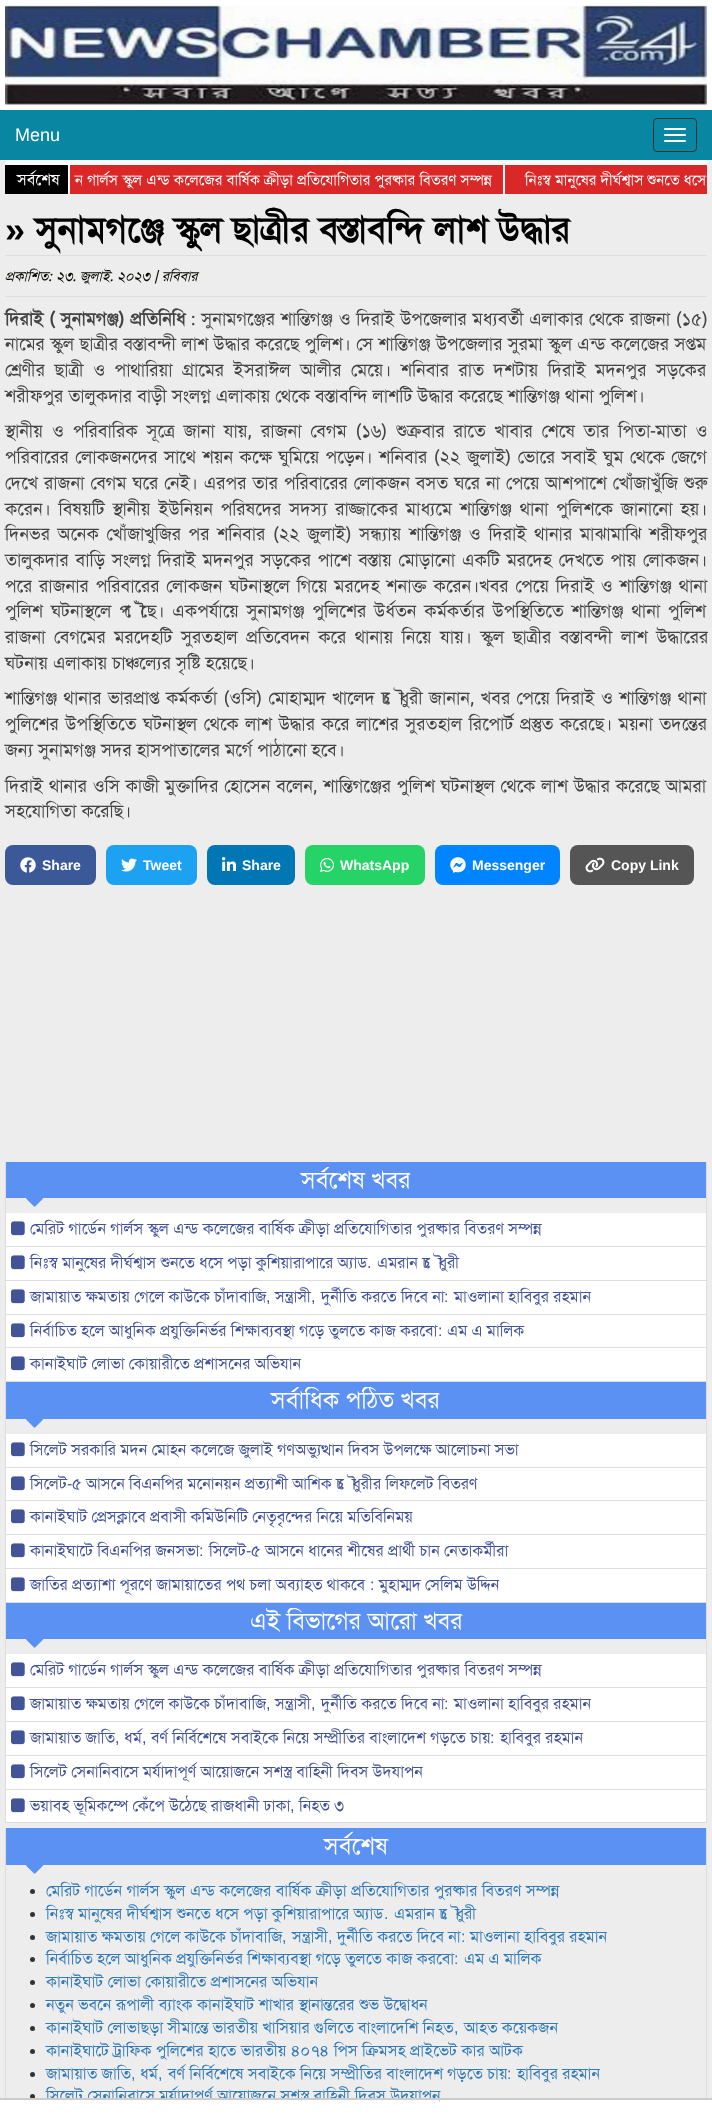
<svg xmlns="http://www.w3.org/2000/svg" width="712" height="2128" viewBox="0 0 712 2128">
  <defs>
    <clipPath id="clip1"><rect x="11" y="1167" width="690" height="26"/></clipPath>
    <clipPath id="clip2"><rect x="11" y="1387" width="690" height="27"/></clipPath>
    <clipPath id="clip3"><rect x="11" y="1608" width="690" height="26"/></clipPath>
  </defs>
  <rect width="100%" height="100%" fill="#ffffff"/>
  <image x="5" y="5" width="702" height="100" href="img1.png"/>
  <rect x="0" y="110" width="712" height="50" fill="#0886a2"/>
  <text x="15" y="141" font-family="Liberation Sans" font-size="18" fill="#ffffff">Menu</text>
  <rect x="653.5" y="118.5" width="43" height="33" rx="3.5" fill="none" stroke="#333333"/>
  <rect x="664" y="128" width="22" height="2" rx="1" fill="#ffffff"/>
  <rect x="664" y="134" width="22" height="2" rx="1" fill="#ffffff"/>
  <rect x="664" y="140" width="22" height="2" rx="1" fill="#ffffff"/>
  <rect x="0" y="160" width="712" height="1938" fill="#ededed"/>
  <rect x="5" y="160" width="702" height="34" fill="#fafafa"/>
  <rect x="5" y="165" width="63" height="29" fill="#000000"/>
  <text x="17" y="185" font-family="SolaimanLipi" font-size="16" fill="#ffffff">সর্বশেষ</text>
  <rect x="70" y="165" width="433" height="29" fill="#da2727"/>
  <text x="75" y="185" word-spacing="0.6" font-family="SolaimanLipi" font-size="15" fill="#ffffff">ন গার্লস স্কুল এন্ড কলেজের বার্ষিক ক্রীড়া প্রতিযোগিতার পুরষ্কার বিতরণ সম্পন্ন</text>
  <rect x="505" y="165" width="202" height="29" fill="#da2727"/>
  <text x="525" y="185" word-spacing="0.5" font-family="SolaimanLipi" font-size="15" fill="#ffffff">নিঃস্ব মানুষের দীর্ঘশ্বাস শুনতে ধসে</text>
  <rect x="5" y="255" width="702" height="1" fill="#dddddd"/>
  <text x="5" y="242" font-family="Liberation Sans" font-size="36" font-weight="bold" fill="#000000">»</text>
  <text x="35" y="242" word-spacing="1.5" font-family="SolaimanLipi" font-size="36" font-weight="bold" fill="#000000">সুনামগঞ্জে স্কুল ছাত্রীর বস্তাবন্দি লাশ উদ্ধার</text>
  <rect x="5" y="296" width="702" height="1" fill="#dddddd"/>
  <text x="5" y="281" font-family="SolaimanLipi" font-size="14" font-style="italic" fill="#060600">প্রকাশিত:</text>
  <text x="56" y="281" word-spacing="0.5" font-family="SolaimanLipi" font-size="14" font-style="italic" fill="#060600">২৩. জুলাই. ২০২৩ | রবিবার</text>
  <text x="5" y="325" word-spacing="1.5" font-family="SolaimanLipi" font-size="18" font-weight="bold" fill="#444444">দিরাই ( সুনামগঞ্জ) প্রতিনিধি</text>
  <text x="191" y="325" word-spacing="1.5" font-family="SolaimanLipi" font-size="18" fill="#444444">: সুনামগঞ্জের শান্তিগঞ্জ ও দিরাই উপজেলার মধ্যবর্তী এলাকার থেকে রাজনা (১৫)</text>
  <text x="5" y="350" word-spacing="1.1" font-family="SolaimanLipi" font-size="18" fill="#444444">নামের স্কুল ছাত্রীর বস্তাবন্দী লাশ উদ্ধার করেছে পুলিশ। সে শান্তিগঞ্জ উপজেলার সুরমা স্কুল এন্ড কলেজের সপ্তম</text>
  <text x="5" y="376" word-spacing="5.25" font-family="SolaimanLipi" font-size="18" fill="#444444">শ্রেণীর ছাত্রী ও পাথারিয়া গ্রামের ইসরাঈল আলীর মেয়ে। শনিবার রাত দশটায় দিরাই মদনপুর সড়কের</text>
  <text x="5" y="402" word-spacing="0.75" font-family="SolaimanLipi" font-size="18" fill="#444444">শরীফপুর তালুকদার বাড়ী সংলগ্ন এলাকায় থেকে বস্তাবন্দি লাশটি উদ্ধার করেছে শান্তিগঞ্জ থানা পুলিশ।</text>
  <text x="5" y="437" word-spacing="4.75" font-family="SolaimanLipi" font-size="18" fill="#444444">স্থানীয় ও পরিবারিক সূত্রে জানা যায়, রাজনা বেগম (১৬) শুক্রবার রাতে খাবার শেষে তার পিতা-মাতা ও</text>
  <text x="5" y="463" word-spacing="2.25" font-family="SolaimanLipi" font-size="18" fill="#444444">পরিবারের লোকজনদের সাথে শয়ন কক্ষে ঘুমিয়ে পড়েন। শনিবার (২২ জুলাই) ভোরে সবাই ঘুম থেকে জেগে</text>
  <text x="5" y="489" word-spacing="1.7" font-family="SolaimanLipi" font-size="18" fill="#444444">দেখে রাজনা বেগম ঘরে নেই। এরপর তার পরিবারের লোকজন বসত ঘরে না পেয়ে আশপাশে খোঁজাখুঁজি শুরু</text>
  <text x="5" y="515" word-spacing="3.6" font-family="SolaimanLipi" font-size="18" fill="#444444">করেন। বিষয়টি স্থানীয় ইউনিয়ন পরিষদের সদস্য রাজ্জাকের মাধ্যমে শান্তিগঞ্জ থানা পুলিশকে জানানো হয়।</text>
  <text x="5" y="540" word-spacing="3.4" font-family="SolaimanLipi" font-size="18" fill="#444444">দিনভর অনেক খোঁজাখুজির পর শনিবার (২২ জুলাই) সন্ধ্যায় শান্তিগঞ্জ ও দিরাই থানার মাঝামাঝি শরীফপুর</text>
  <text x="5" y="566" word-spacing="2.6" font-family="SolaimanLipi" font-size="18" fill="#444444">তালুকদার বাড়ি সংলগ্ন দিরাই মদনপুর সড়কের পাশে বস্তায় মোড়ানো একটি মরদেহ দেখতে পায় লোকজন।</text>
  <text x="5" y="592" word-spacing="2.6" font-family="SolaimanLipi" font-size="18" fill="#444444">পরে রাজনার পরিবারের লোকজন ঘটনাস্থলে গিয়ে মরদেহ শনাক্ত করেন।খবর পেয়ে দিরাই ও শান্তিগঞ্জ থানা</text>
  <text x="5" y="617" word-spacing="3.6" font-family="SolaimanLipi" font-size="18" fill="#444444">পুলিশ ঘটনাস্থলে পৌঁছে। একপর্যায়ে সুনামগঞ্জ পুলিশের উর্ধতন কর্মকর্তার উপস্থিতিতে শান্তিগঞ্জ থানা পুলিশ</text>
  <text x="5" y="643" word-spacing="4.25" font-family="SolaimanLipi" font-size="18" fill="#444444">রাজনা বেগমের মরদেহটি সুরতহাল প্রতিবেদন করে থানায় নিয়ে যায়। স্কুল ছাত্রীর বস্তাবন্দী লাশ উদ্ধারের</text>
  <text x="5" y="669" word-spacing="0.75" font-family="SolaimanLipi" font-size="18" fill="#444444">ঘটনায় এলাকায় চাঞ্চল্যের সৃষ্টি হয়েছে।</text>
  <text x="5" y="704" word-spacing="2.1" font-family="SolaimanLipi" font-size="18" fill="#444444">শান্তিগঞ্জ থানার ভারপ্রাপ্ত কর্মকর্তা (ওসি) মোহাম্মদ খালেদ চৌধুরী জানান, খবর পেয়ে দিরাই ও শান্তিগঞ্জ থানা</text>
  <text x="5" y="730" word-spacing="2.4" font-family="SolaimanLipi" font-size="18" fill="#444444">পুলিশের উপস্থিতিতে ঘটনাস্থল থেকে লাশ উদ্ধার করে লাশের সুরতহাল রিপোর্ট প্রস্তুত করেছে। ময়না তদন্তের</text>
  <text x="5" y="756" word-spacing="0.75" font-family="SolaimanLipi" font-size="18" fill="#444444">জন্য সুনামগঞ্জ সদর হাসপাতালের মর্গে পাঠানো হবে।</text>
  <text x="5" y="792" word-spacing="1.5" font-family="SolaimanLipi" font-size="18" fill="#444444">দিরাই থানার ওসি কাজী মুক্তাদির হোসেন বলেন, শান্তিগঞ্জের পুলিশ ঘটনাস্থল থেকে লাশ উদ্ধার করেছে আমরা</text>
  <text x="5" y="817" word-spacing="1" font-family="SolaimanLipi" font-size="18" fill="#444444">সহযোগিতা করেছি।</text>
  <rect x="5" y="845" width="91" height="40" rx="8" fill="#3b5998"/>
  <image x="20" y="857" width="16" height="16" href="img2.png"/>
  <text x="42" y="870" font-family="Liberation Sans" font-size="14" font-weight="bold" fill="#ffffff">Share</text>
  <rect x="106" y="845" width="91" height="40" rx="8" fill="#1da1f2"/>
  <image x="121" y="858" width="16" height="14" href="img3.png"/>
  <text x="143" y="870" font-family="Liberation Sans" font-size="14" font-weight="bold" fill="#ffffff">Tweet</text>
  <rect x="207" y="845" width="88" height="40" rx="8" fill="#0077b5"/>
  <image x="222" y="857" width="14" height="14" href="img4.png"/>
  <text x="242" y="870" font-family="Liberation Sans" font-size="14" font-weight="bold" fill="#ffffff">Share</text>
  <rect x="305" y="845" width="120" height="40" rx="8" fill="#25d366"/>
  <image x="320" y="858" width="14" height="14" href="img5.png"/>
  <text x="340" y="870" font-family="Liberation Sans" font-size="14" font-weight="bold" fill="#ffffff">WhatsApp</text>
  <rect x="435" y="845" width="125" height="40" rx="8" fill="#0084ff"/>
  <image x="450" y="857" width="16" height="16" href="img6.png"/>
  <text x="472" y="870" font-family="Liberation Sans" font-size="14" font-weight="bold" fill="#ffffff">Messenger</text>
  <rect x="570" y="845" width="124" height="40" rx="8" fill="#555555"/>
  <image x="585" y="857" width="20" height="16" href="img7.png"/>
  <text x="611" y="870" font-family="Liberation Sans" font-size="14" font-weight="bold" fill="#ffffff">Copy Link</text>
  <rect x="706" y="1162" width="1" height="661" fill="#dddddd"/>
  <rect x="5" y="1381" width="702" height="1" fill="#dddddd"/>
  <rect x="5" y="1162" width="1" height="220" fill="#dddddd"/>
  <rect x="6" y="1162" width="700" height="36" fill="#5b91f2"/>
  <g clip-path="url(#clip1)">
    <text x="301" y="1188" word-spacing="1" font-family="SolaimanLipi" font-size="24" fill="#ffffff">সর্বশেষ খবর</text>
  </g>
  <image x="26" y="1198" width="18" height="9" href="img8.png"/>
  <rect x="6" y="1213" width="700" height="33" fill="#ffffff"/>
  <image x="11" y="1221" width="14" height="15" href="img9.png"/>
  <text x="30" y="1234" word-spacing="0.6" font-family="SolaimanLipi" font-size="16" fill="#435398">মেরিট গার্ডেন গার্লস স্কুল এন্ড কলেজের বার্ষিক ক্রীড়া প্রতিযোগিতার পুরষ্কার বিতরণ সম্পন্ন</text>
  <rect x="6" y="1247" width="700" height="33" fill="#ffffff"/>
  <rect x="6" y="1246" width="700" height="1" fill="#dddddd"/>
  <image x="11" y="1255" width="14" height="15" href="img9.png"/>
  <text x="30" y="1268" word-spacing="0.5" font-family="SolaimanLipi" font-size="16" fill="#435398">নিঃস্ব মানুষের দীর্ঘশ্বাস শুনতে ধসে পড়া কুশিয়ারাপারে অ্যাড</text>
  <text x="367" y="1268" font-family="Liberation Sans" font-size="16" fill="#435398">.</text>
  <text x="377" y="1268" word-spacing="0.5" font-family="SolaimanLipi" font-size="16" fill="#435398">এমরান চৌধুরী</text>
  <rect x="6" y="1281" width="700" height="33" fill="#ffffff"/>
  <rect x="6" y="1280" width="700" height="1" fill="#dddddd"/>
  <image x="11" y="1289" width="14" height="15" href="img9.png"/>
  <text x="30" y="1302" word-spacing="0.5" font-family="SolaimanLipi" font-size="16" fill="#435398">জামায়াত ক্ষমতায় গেলে কাউকে চাঁদাবাজি</text>
  <text x="275" y="1302" font-family="SolaimanLipi" font-size="16" fill="#435398">সন্ত্রাসী</text>
  <text x="321" y="1302" word-spacing="0.5" font-family="SolaimanLipi" font-size="16" fill="#435398">দুর্নীতি করতে দিবে না</text>
  <text x="444" y="1302" font-family="Liberation Sans" font-size="16" fill="#435398">:</text>
  <text x="454" y="1302" word-spacing="0.5" font-family="SolaimanLipi" font-size="16" fill="#435398">মাওলানা হাবিবুর রহমান</text>
  <text x="266" y="1302" font-family="Liberation Sans" font-size="16" fill="#435398">,</text>
  <text x="311" y="1302" font-family="Liberation Sans" font-size="16" fill="#435398">,</text>
  <rect x="6" y="1315" width="700" height="32" fill="#ffffff"/>
  <rect x="6" y="1314" width="700" height="1" fill="#dddddd"/>
  <image x="11" y="1323" width="14" height="15" href="img9.png"/>
  <text x="30" y="1336" word-spacing="0.5" font-family="SolaimanLipi" font-size="16" fill="#435398">নির্বাচিত হলে আধুনিক প্রযুক্তিনির্ভর শিক্ষাব্যবস্থা গড়ে তুলতে কাজ করবো</text>
  <text x="438" y="1336" font-family="Liberation Sans" font-size="16" fill="#435398">:</text>
  <text x="447" y="1336" word-spacing="0.5" font-family="SolaimanLipi" font-size="16" fill="#435398">এম এ মালিক</text>
  <rect x="6" y="1348" width="700" height="33" fill="#ffffff"/>
  <rect x="6" y="1347" width="700" height="1" fill="#dddddd"/>
  <image x="11" y="1356" width="14" height="15" href="img9.png"/>
  <text x="30" y="1369" word-spacing="0.5" font-family="SolaimanLipi" font-size="16" fill="#435398">কানাইঘাট লোভা কোয়ারীতে প্রশাসনের অভিযান</text>
  <rect x="5" y="1602" width="702" height="1" fill="#dddddd"/>
  <rect x="5" y="1382" width="1" height="221" fill="#dddddd"/>
  <rect x="6" y="1382" width="700" height="37" fill="#5b91f2"/>
  <g clip-path="url(#clip2)">
    <text x="271" y="1408" word-spacing="1" font-family="SolaimanLipi" font-size="24" fill="#ffffff">সর্বাধিক পঠিত খবর</text>
  </g>
  <image x="26" y="1419" width="18" height="9" href="img8.png"/>
  <rect x="6" y="1434" width="700" height="33" fill="#ffffff"/>
  <image x="11" y="1442" width="14" height="15" href="img9.png"/>
  <text x="30" y="1455" word-spacing="0.6" font-family="SolaimanLipi" font-size="16" fill="#435398">সিলেট সরকারি মদন মোহন কলেজে জুলাই গণঅভ্যুত্থান দিবস উপলক্ষে আলোচনা সভা</text>
  <rect x="6" y="1468" width="700" height="32" fill="#ffffff"/>
  <rect x="6" y="1467" width="700" height="1" fill="#dddddd"/>
  <image x="11" y="1476" width="14" height="15" href="img9.png"/>
  <text x="30" y="1489" font-family="SolaimanLipi" font-size="16" fill="#435398">সিলেট</text>
  <text x="67" y="1489" font-family="Liberation Sans" font-size="16" fill="#435398">-</text>
  <text x="72" y="1489" word-spacing="0.5" font-family="SolaimanLipi" font-size="16" fill="#435398">৫ আসনে বিএনপির মনোনয়ন প্রত্যাশী আশিক চৌধুরীর লিফলেট বিতরণ</text>
  <rect x="6" y="1501" width="700" height="33" fill="#ffffff"/>
  <rect x="6" y="1500" width="700" height="1" fill="#dddddd"/>
  <image x="11" y="1509" width="14" height="15" href="img9.png"/>
  <text x="30" y="1522" word-spacing="0.5" font-family="SolaimanLipi" font-size="16" fill="#435398">কানাইঘাট প্রেসক্লাবে প্রবাসী কমিউনিটি নেতৃবৃন্দের নিয়ে মতিবিনিময়</text>
  <rect x="6" y="1535" width="700" height="33" fill="#ffffff"/>
  <rect x="6" y="1534" width="700" height="1" fill="#dddddd"/>
  <image x="11" y="1543" width="14" height="15" href="img9.png"/>
  <text x="30" y="1556" word-spacing="0.5" font-family="SolaimanLipi" font-size="16" fill="#435398">কানাইঘাটে বিএনপির জনসভা</text>
  <text x="199" y="1556" font-family="Liberation Sans" font-size="16" fill="#435398">:</text>
  <text x="209" y="1556" font-family="SolaimanLipi" font-size="16" fill="#435398">সিলেট</text>
  <text x="246" y="1556" font-family="Liberation Sans" font-size="16" fill="#435398">-</text>
  <text x="251" y="1556" word-spacing="0.5" font-family="SolaimanLipi" font-size="16" fill="#435398">৫ আসনে ধানের শীষের প্রার্থী চান নেতাকর্মীরা</text>
  <rect x="6" y="1569" width="700" height="33" fill="#ffffff"/>
  <rect x="6" y="1568" width="700" height="1" fill="#dddddd"/>
  <image x="11" y="1577" width="14" height="15" href="img9.png"/>
  <text x="30" y="1590" word-spacing="0.5" font-family="SolaimanLipi" font-size="16" fill="#435398">জাতির প্রত্যাশা পূরণে জামায়াতের পথ চলা অব্যাহত থাকবে</text>
  <text x="370" y="1590" font-family="Liberation Sans" font-size="16" fill="#435398">:</text>
  <text x="379" y="1590" word-spacing="0.5" font-family="SolaimanLipi" font-size="16" fill="#435398">মুহাম্মদ সেলিম উদ্দিন</text>
  <rect x="5" y="1822" width="702" height="1" fill="#dddddd"/>
  <rect x="5" y="1603" width="1" height="220" fill="#dddddd"/>
  <rect x="6" y="1603" width="700" height="36" fill="#5b91f2"/>
  <g clip-path="url(#clip3)">
    <text x="250" y="1629" word-spacing="1" font-family="SolaimanLipi" font-size="24" fill="#ffffff">এই বিভাগের আরো খবর</text>
  </g>
  <image x="26" y="1639" width="18" height="9" href="img8.png"/>
  <rect x="6" y="1654" width="700" height="33" fill="#ffffff"/>
  <image x="11" y="1662" width="14" height="15" href="img9.png"/>
  <text x="30" y="1675" word-spacing="0.6" font-family="SolaimanLipi" font-size="16" fill="#435398">মেরিট গার্ডেন গার্লস স্কুল এন্ড কলেজের বার্ষিক ক্রীড়া প্রতিযোগিতার পুরষ্কার বিতরণ সম্পন্ন</text>
  <rect x="6" y="1688" width="700" height="33" fill="#ffffff"/>
  <rect x="6" y="1687" width="700" height="1" fill="#dddddd"/>
  <image x="11" y="1696" width="14" height="15" href="img9.png"/>
  <text x="30" y="1709" word-spacing="0.5" font-family="SolaimanLipi" font-size="16" fill="#435398">জামায়াত ক্ষমতায় গেলে কাউকে চাঁদাবাজি</text>
  <text x="275" y="1709" font-family="SolaimanLipi" font-size="16" fill="#435398">সন্ত্রাসী</text>
  <text x="321" y="1709" word-spacing="0.5" font-family="SolaimanLipi" font-size="16" fill="#435398">দুর্নীতি করতে দিবে না</text>
  <text x="444" y="1709" font-family="Liberation Sans" font-size="16" fill="#435398">:</text>
  <text x="454" y="1709" word-spacing="0.5" font-family="SolaimanLipi" font-size="16" fill="#435398">মাওলানা হাবিবুর রহমান</text>
  <text x="266" y="1709" font-family="Liberation Sans" font-size="16" fill="#435398">,</text>
  <text x="311" y="1709" font-family="Liberation Sans" font-size="16" fill="#435398">,</text>
  <rect x="6" y="1722" width="700" height="33" fill="#ffffff"/>
  <rect x="6" y="1721" width="700" height="1" fill="#dddddd"/>
  <image x="11" y="1730" width="14" height="15" href="img9.png"/>
  <text x="30" y="1743" word-spacing="0.5" font-family="SolaimanLipi" font-size="16" fill="#435398">জামায়াত জাতি</text>
  <text x="124" y="1743" font-family="SolaimanLipi" font-size="16" fill="#435398">ধর্ম</text>
  <text x="151" y="1743" word-spacing="0.5" font-family="SolaimanLipi" font-size="16" fill="#435398">বর্ণ নির্বিশেষে সবাইকে নিয়ে সম্প্রীতির বাংলাদেশ গড়তে চায়</text>
  <text x="490" y="1743" font-family="Liberation Sans" font-size="16" fill="#435398">:</text>
  <text x="500" y="1743" word-spacing="0.5" font-family="SolaimanLipi" font-size="16" fill="#435398">হাবিবুর রহমান</text>
  <text x="115" y="1743" font-family="Liberation Sans" font-size="16" fill="#435398">,</text>
  <text x="142" y="1743" font-family="Liberation Sans" font-size="16" fill="#435398">,</text>
  <rect x="6" y="1756" width="700" height="33" fill="#ffffff"/>
  <rect x="6" y="1755" width="700" height="1" fill="#dddddd"/>
  <image x="11" y="1764" width="14" height="15" href="img9.png"/>
  <text x="30" y="1777" word-spacing="0.5" font-family="SolaimanLipi" font-size="16" fill="#435398">সিলেট সেনানিবাসে মর্যাদাপূর্ণ আয়োজনে সশস্ত্র বাহিনী দিবস উদযাপন</text>
  <rect x="6" y="1790" width="700" height="32" fill="#ffffff"/>
  <rect x="6" y="1789" width="700" height="1" fill="#dddddd"/>
  <image x="11" y="1798" width="14" height="15" href="img9.png"/>
  <text x="30" y="1811" word-spacing="0.5" font-family="SolaimanLipi" font-size="16" fill="#435398">ভয়াবহ ভূমিকম্পে কেঁপে উঠেছে রাজধানী ঢাকা</text>
  <text x="290" y="1811" font-family="Liberation Sans" font-size="16" fill="#435398">,</text>
  <text x="299" y="1811" word-spacing="0.5" font-family="SolaimanLipi" font-size="16" fill="#435398">নিহত ৩</text>
  <rect x="706" y="1828" width="1" height="270" fill="#dddddd"/>
  <rect x="5" y="1828" width="1" height="270" fill="#dddddd"/>
  <rect x="6" y="1828" width="700" height="37" fill="#5b91f2"/>
  <text x="324" y="1854" font-family="SolaimanLipi" font-size="24" fill="#ffffff">সর্বশেষ</text>
  <image x="26" y="1865" width="18" height="9" href="img8.png"/>
  <circle cx="32.5" cy="1891.5" r="2.5" fill="#333333"/>
  <text x="46" y="1896" word-spacing="0.75" font-family="SolaimanLipi" font-size="16" fill="#337ab7">মেরিট গার্ডেন গার্লস স্কুল এন্ড কলেজের বার্ষিক ক্রীড়া প্রতিযোগিতার পুরষ্কার বিতরণ সম্পন্ন</text>
  <circle cx="32.5" cy="1914.5" r="2.5" fill="#333333"/>
  <text x="46" y="1919" word-spacing="0.5" font-family="SolaimanLipi" font-size="16" fill="#337ab7">নিঃস্ব মানুষের দীর্ঘশ্বাস শুনতে ধসে পড়া কুশিয়ারাপারে অ্যাড</text>
  <text x="394" y="1919" word-spacing="0.5" font-family="SolaimanLipi" font-size="16" fill="#337ab7">এমরান চৌধুরী</text>
  <text x="384" y="1919" font-family="Liberation Sans" font-size="16" fill="#337ab7">.</text>
  <circle cx="32.5" cy="1937.5" r="2.5" fill="#333333"/>
  <text x="46" y="1942" word-spacing="0.5" font-family="SolaimanLipi" font-size="16" fill="#337ab7">জামায়াত ক্ষমতায় গেলে কাউকে চাঁদাবাজি</text>
  <text x="292" y="1942" font-family="SolaimanLipi" font-size="16" fill="#337ab7">সন্ত্রাসী</text>
  <text x="337" y="1942" word-spacing="0.5" font-family="SolaimanLipi" font-size="16" fill="#337ab7">দুর্নীতি করতে দিবে না</text>
  <text x="461" y="1942" font-family="Liberation Sans" font-size="16" fill="#337ab7">:</text>
  <text x="470" y="1942" word-spacing="0.5" font-family="SolaimanLipi" font-size="16" fill="#337ab7">মাওলানা হাবিবুর রহমান</text>
  <text x="282" y="1942" font-family="Liberation Sans" font-size="16" fill="#337ab7">,</text>
  <text x="328" y="1942" font-family="Liberation Sans" font-size="16" fill="#337ab7">,</text>
  <circle cx="32.5" cy="1959.5" r="2.5" fill="#333333"/>
  <text x="46" y="1964" word-spacing="0.6" font-family="SolaimanLipi" font-size="16" fill="#337ab7">নির্বাচিত হলে আধুনিক প্রযুক্তিনির্ভর শিক্ষাব্যবস্থা গড়ে তুলতে কাজ করবো</text>
  <text x="454" y="1964" font-family="Liberation Sans" font-size="16" fill="#337ab7">:</text>
  <text x="464" y="1964" word-spacing="0.6" font-family="SolaimanLipi" font-size="16" fill="#337ab7">এম এ মালিক</text>
  <circle cx="32.5" cy="1982.5" r="2.5" fill="#333333"/>
  <text x="46" y="1987" word-spacing="0.75" font-family="SolaimanLipi" font-size="16" fill="#337ab7">কানাইঘাট লোভা কোয়ারীতে প্রশাসনের অভিযান</text>
  <circle cx="32.5" cy="2005.5" r="2.5" fill="#333333"/>
  <text x="46" y="2010" word-spacing="0.75" font-family="SolaimanLipi" font-size="16" fill="#337ab7">নতুন ভবনে রূপালী ব্যাংক কানাইঘাট শাখার স্থানান্তরের শুভ উদ্বোধন</text>
  <circle cx="32.5" cy="2028.5" r="2.5" fill="#333333"/>
  <text x="46" y="2033" word-spacing="0.5" font-family="SolaimanLipi" font-size="16" fill="#337ab7">কানাইঘাট লোভাছড়া সীমান্তে ভারতীয় খাসিয়ার গুলিতে বাংলাদেশি নিহত</text>
  <text x="464" y="2033" word-spacing="0.5" font-family="SolaimanLipi" font-size="16" fill="#337ab7">আহত কয়েকজন</text>
  <text x="454" y="2033" font-family="Liberation Sans" font-size="16" fill="#337ab7">,</text>
  <circle cx="32.5" cy="2051.5" r="2.5" fill="#333333"/>
  <text x="46" y="2056" word-spacing="0.75" font-family="SolaimanLipi" font-size="16" fill="#337ab7">কানাইঘাটে ট্রাফিক পুলিশের হাতে ভারতীয় ৪০৭৪ পিস ক্রিমসহ প্রাইভেট কার আটক</text>
  <circle cx="32.5" cy="2074.5" r="2.5" fill="#333333"/>
  <text x="46" y="2079" word-spacing="0.5" font-family="SolaimanLipi" font-size="16" fill="#337ab7">জামায়াত জাতি</text>
  <text x="140" y="2079" font-family="SolaimanLipi" font-size="16" fill="#337ab7">ধর্ম</text>
  <text x="168" y="2079" word-spacing="0.5" font-family="SolaimanLipi" font-size="16" fill="#337ab7">বর্ণ নির্বিশেষে সবাইকে নিয়ে সম্প্রীতির বাংলাদেশ গড়তে চায়</text>
  <text x="507" y="2079" font-family="Liberation Sans" font-size="16" fill="#337ab7">:</text>
  <text x="517" y="2079" word-spacing="0.5" font-family="SolaimanLipi" font-size="16" fill="#337ab7">হাবিবুর রহমান</text>
  <text x="131" y="2079" font-family="Liberation Sans" font-size="16" fill="#337ab7">,</text>
  <text x="158" y="2079" font-family="Liberation Sans" font-size="16" fill="#337ab7">,</text>
  <circle cx="32.5" cy="2096.5" r="2.5" fill="#333333"/>
  <text x="46" y="2101" word-spacing="0.75" font-family="SolaimanLipi" font-size="16" fill="#337ab7">সিলেট সেনানিবাসে মর্যাদাপূর্ণ আয়োজনে সশস্ত্র বাহিনী দিবস উদযাপন</text>
  <rect x="47" y="2100" width="392" height="7" fill="#ffffff"/>
  <rect x="0" y="2098" width="712" height="2" fill="#cccccc"/>
</svg>
